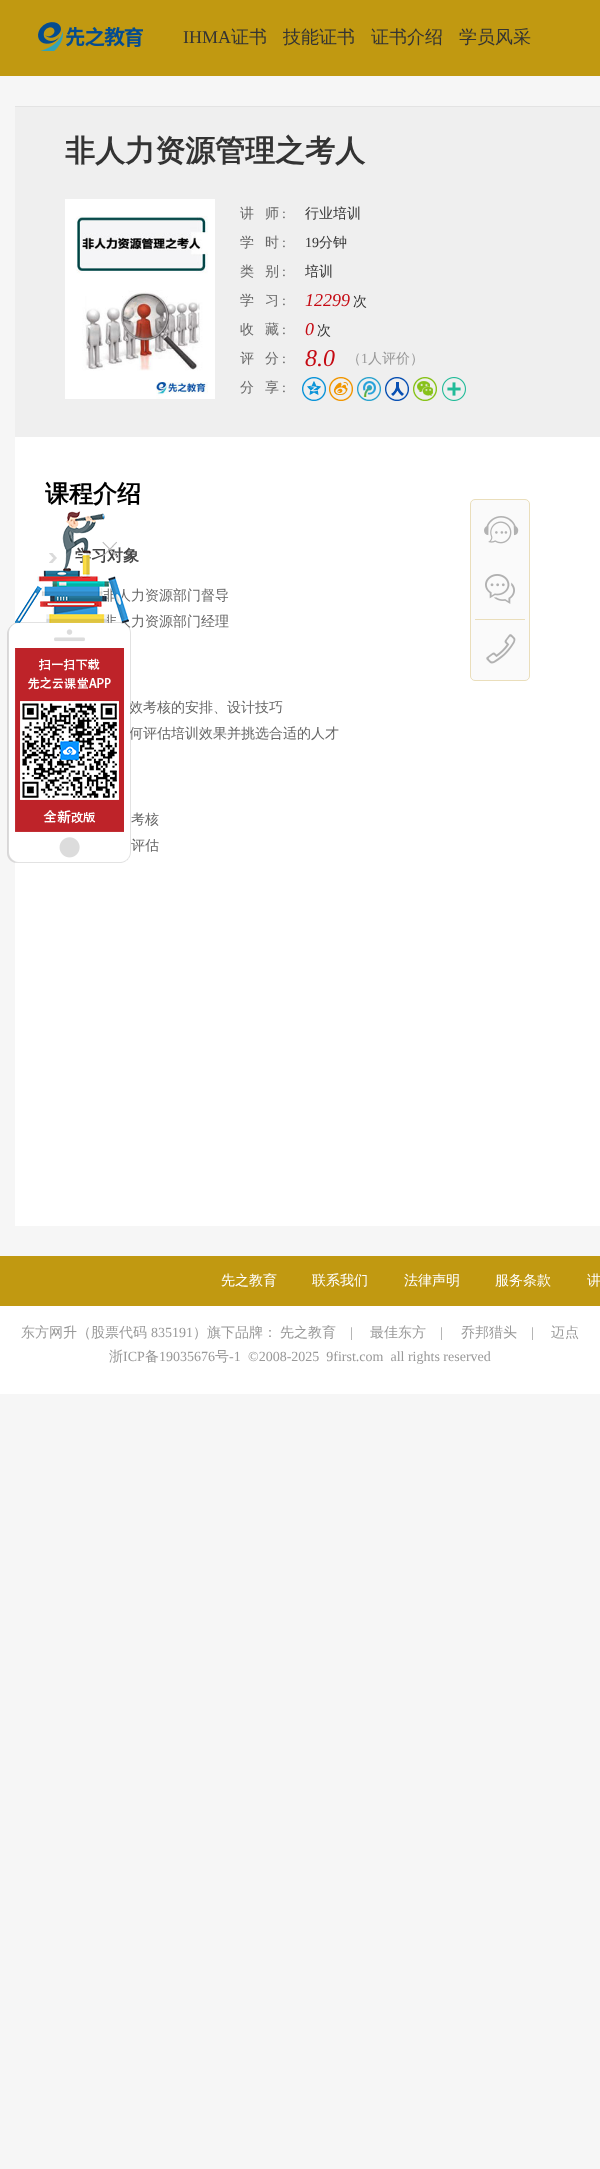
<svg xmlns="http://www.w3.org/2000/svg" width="600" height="2169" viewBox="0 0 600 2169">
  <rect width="100%" height="100%" fill="#f6f6f6"/>
  <rect x="0" y="0" width="600" height="76" fill="#c19911"/>
  <image x="38" y="22" width="105" height="29" href="img1.png"/>
  <text x="183" y="43" font-family="Liberation Serif" font-size="18" fill="#333333">IHMA</text>
  <text x="231" y="43" font-family="WenQuanYi Zen Hei" font-size="18" font-weight="500" fill="#333333">证书</text>
  <text x="283" y="43" font-family="WenQuanYi Zen Hei" font-size="18" font-weight="500" fill="#333333">技能证书</text>
  <text x="371" y="43" font-family="WenQuanYi Zen Hei" font-size="18" font-weight="500" fill="#333333">证书介绍</text>
  <text x="459" y="43" font-family="WenQuanYi Zen Hei" font-size="18" font-weight="500" fill="#333333">学员风采</text>
  <rect x="15" y="107" width="585" height="330" fill="#efefef"/>
  <rect x="15" y="106" width="585" height="1" fill="#e3e3e3"/>
  <text x="65" y="161" font-family="WenQuanYi Zen Hei" font-size="30" font-weight="bold" fill="#333333">非人力资源管理之考人</text>
  <image x="65" y="199" width="150" height="200" href="img2.png"/>
  <text x="240" y="218" font-family="WenQuanYi Zen Hei" font-size="14" font-weight="500" fill="#666666">讲</text>
  <text x="265" y="218" font-family="WenQuanYi Zen Hei" font-size="14" font-weight="500" fill="#666666">师</text>
  <text x="282" y="218" font-family="Liberation Serif" font-size="14" fill="#666666">:</text>
  <text x="305" y="218" font-family="WenQuanYi Zen Hei" font-size="14" font-weight="500" fill="#333333">行业培训</text>
  <text x="240" y="247" font-family="WenQuanYi Zen Hei" font-size="14" font-weight="500" fill="#666666">学</text>
  <text x="265" y="247" font-family="WenQuanYi Zen Hei" font-size="14" font-weight="500" fill="#666666">时</text>
  <text x="282" y="247" font-family="Liberation Serif" font-size="14" fill="#666666">:</text>
  <text x="305" y="247" font-family="Liberation Serif" font-size="14" fill="#333333">19</text>
  <text x="319" y="247" font-family="WenQuanYi Zen Hei" font-size="14" font-weight="500" fill="#333333">分钟</text>
  <text x="240" y="276" font-family="WenQuanYi Zen Hei" font-size="14" font-weight="500" fill="#666666">类</text>
  <text x="265" y="276" font-family="WenQuanYi Zen Hei" font-size="14" font-weight="500" fill="#666666">别</text>
  <text x="282" y="276" font-family="Liberation Serif" font-size="14" fill="#666666">:</text>
  <text x="305" y="276" font-family="WenQuanYi Zen Hei" font-size="14" font-weight="500" fill="#333333">培训</text>
  <text x="240" y="305" font-family="WenQuanYi Zen Hei" font-size="14" font-weight="500" fill="#666666">学</text>
  <text x="265" y="305" font-family="WenQuanYi Zen Hei" font-size="14" font-weight="500" fill="#666666">习</text>
  <text x="282" y="305" font-family="Liberation Serif" font-size="14" fill="#666666">:</text>
  <text x="305" y="306" font-family="Liberation Serif" font-size="18" font-style="italic" fill="#c50912">12299</text>
  <text x="353" y="306" font-family="WenQuanYi Zen Hei" font-size="14" font-weight="500" fill="#333333">次</text>
  <text x="240" y="334" font-family="WenQuanYi Zen Hei" font-size="14" font-weight="500" fill="#666666">收</text>
  <text x="265" y="334" font-family="WenQuanYi Zen Hei" font-size="14" font-weight="500" fill="#666666">藏</text>
  <text x="282" y="334" font-family="Liberation Serif" font-size="14" fill="#666666">:</text>
  <text x="305" y="335" font-family="Liberation Serif" font-size="18" font-style="italic" fill="#c50912">0</text>
  <text x="317" y="335" font-family="WenQuanYi Zen Hei" font-size="14" font-weight="500" fill="#333333">次</text>
  <text x="240" y="363" font-family="WenQuanYi Zen Hei" font-size="14" font-weight="500" fill="#666666">评</text>
  <text x="265" y="363" font-family="WenQuanYi Zen Hei" font-size="14" font-weight="500" fill="#666666">分</text>
  <text x="282" y="363" font-family="Liberation Serif" font-size="14" fill="#666666">:</text>
  <text x="305" y="366" font-family="Liberation Serif" font-size="24" font-style="italic" fill="#c50912">8.0</text>
  <text x="347" y="363" font-family="WenQuanYi Zen Hei" font-size="14" font-weight="500" fill="#999999">（</text>
  <text x="361" y="363" font-family="Liberation Serif" font-size="14" fill="#999999">1</text>
  <text x="368" y="363" font-family="WenQuanYi Zen Hei" font-size="14" font-weight="500" fill="#999999">人评价）</text>
  <text x="240" y="392" font-family="WenQuanYi Zen Hei" font-size="14" font-weight="500" fill="#666666">分</text>
  <text x="265" y="392" font-family="WenQuanYi Zen Hei" font-size="14" font-weight="500" fill="#666666">享</text>
  <text x="282" y="392" font-family="Liberation Serif" font-size="14" fill="#666666">:</text>
  <image x="302" y="377" width="164" height="24" href="img3.png"/>
  <rect x="15" y="437" width="585" height="789" fill="#ffffff"/>
  <text x="45" y="502" font-family="WenQuanYi Zen Hei" font-size="24" font-weight="bold" fill="#000000">课程介绍</text>
  <image x="49" y="553" width="8" height="10" href="img4.png"/>
  <text x="75" y="561" font-family="WenQuanYi Zen Hei" font-size="16" font-weight="bold" fill="#454546">学习对象</text>
  <text x="103" y="600" font-family="WenQuanYi Zen Hei" font-size="14" font-weight="500" fill="#666666">非人力资源部门督导</text>
  <text x="103" y="626" font-family="WenQuanYi Zen Hei" font-size="14" font-weight="500" fill="#666666">非人力资源部门经理</text>
  <text x="129" y="712" font-family="WenQuanYi Zen Hei" font-size="14" font-weight="500" fill="#666666">效考核的安排、设计技巧</text>
  <text x="129" y="738" font-family="WenQuanYi Zen Hei" font-size="14" font-weight="500" fill="#666666">何评估培训效果并挑选合适的人才</text>
  <text x="131" y="824" font-family="WenQuanYi Zen Hei" font-size="14" font-weight="500" fill="#666666">考核</text>
  <text x="131" y="850" font-family="WenQuanYi Zen Hei" font-size="14" font-weight="500" fill="#666666">评估</text>
  <rect x="470.5" y="499.5" width="59" height="181" rx="4.5" fill="#fafafa" stroke="#eadebb"/>
  <image x="484" y="516" width="35" height="28" href="img5.png"/>
  <image x="485" y="574" width="30" height="30" href="img6.png"/>
  <rect x="475" y="619" width="50" height="1" fill="#eadebb"/>
  <image x="486" y="634" width="30" height="30" href="img7.png"/>
  <image x="7" y="511" width="124" height="352" href="img8.png"/>
  <rect x="0" y="1306" width="600" height="88" fill="#ffffff"/>
  <rect x="0" y="1256" width="600" height="50" fill="#c19911"/>
  <text x="221" y="1285" font-family="WenQuanYi Zen Hei" font-size="14" font-weight="500" fill="#ffffff">先之教育</text>
  <text x="312" y="1285" font-family="WenQuanYi Zen Hei" font-size="14" font-weight="500" fill="#ffffff">联系我们</text>
  <text x="404" y="1285" font-family="WenQuanYi Zen Hei" font-size="14" font-weight="500" fill="#ffffff">法律声明</text>
  <text x="495" y="1285" font-family="WenQuanYi Zen Hei" font-size="14" font-weight="500" fill="#ffffff">服务条款</text>
  <text x="587" y="1285" font-family="WenQuanYi Zen Hei" font-size="14" font-weight="500" fill="#ffffff">讲</text>
  <text x="21" y="1337" font-family="WenQuanYi Zen Hei" font-size="14" font-weight="500" fill="#999999">东方网升（股票代码</text>
  <text x="151" y="1337" font-family="Liberation Serif" font-size="14" fill="#999999">835191</text>
  <text x="193" y="1337" font-family="WenQuanYi Zen Hei" font-size="14" font-weight="500" fill="#999999">）旗下品牌：</text>
  <text x="280" y="1337" font-family="WenQuanYi Zen Hei" font-size="14" font-weight="500" fill="#999999">先之教育</text>
  <text x="350" y="1337" font-family="Liberation Serif" font-size="14" fill="#999999">|</text>
  <text x="370" y="1337" font-family="WenQuanYi Zen Hei" font-size="14" font-weight="500" fill="#999999">最佳东方</text>
  <text x="440" y="1337" font-family="Liberation Serif" font-size="14" fill="#999999">|</text>
  <text x="461" y="1337" font-family="WenQuanYi Zen Hei" font-size="14" font-weight="500" fill="#999999">乔邦猎头</text>
  <text x="531" y="1337" font-family="Liberation Serif" font-size="14" fill="#999999">|</text>
  <text x="551" y="1337" font-family="WenQuanYi Zen Hei" font-size="14" font-weight="500" fill="#999999">迈点</text>
  <text x="109" y="1361" font-family="WenQuanYi Zen Hei" font-size="14" font-weight="500" fill="#999999">浙</text>
  <text x="123" y="1361" font-family="Liberation Serif" font-size="14" fill="#999999">ICP</text>
  <text x="145" y="1361" font-family="WenQuanYi Zen Hei" font-size="14" font-weight="500" fill="#999999">备</text>
  <text x="159" y="1361" font-family="Liberation Serif" font-size="14" fill="#999999">19035676</text>
  <text x="215" y="1361" font-family="WenQuanYi Zen Hei" font-size="14" font-weight="500" fill="#999999">号</text>
  <text x="229" y="1361" font-family="Liberation Serif" font-size="14" fill="#999999">-1</text>
  <text x="248" y="1361" font-family="Liberation Serif" font-size="14" fill="#999999" xml:space="preserve">©2008-2025  9first.com  all rights reserved</text>
</svg>
